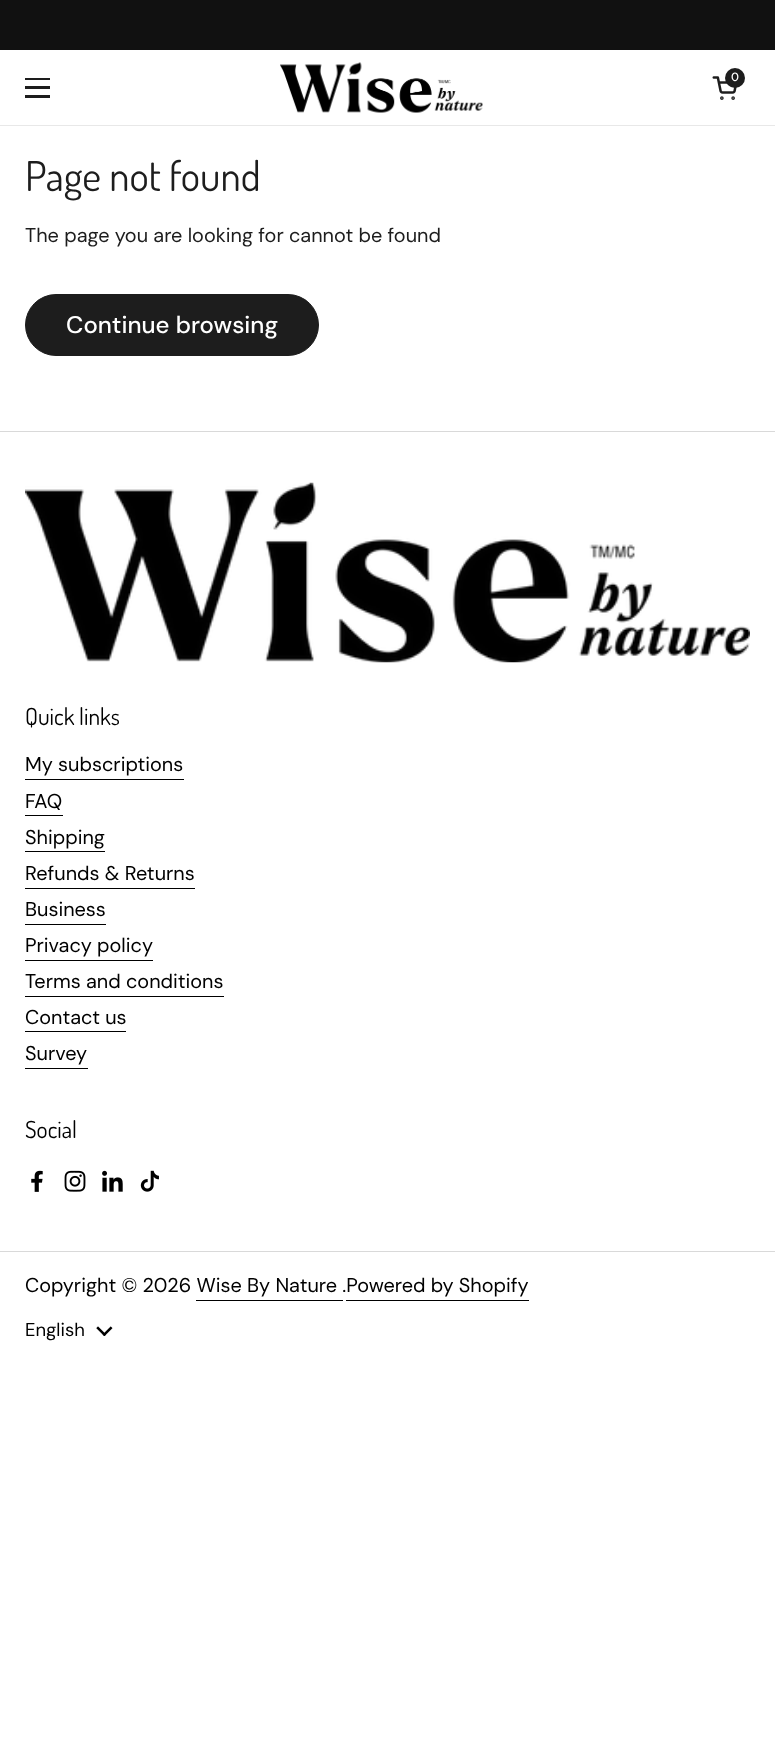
<svg xmlns="http://www.w3.org/2000/svg" width="775" height="1762" viewBox="0 0 775 1762">
  <rect width="100%" height="100%" fill="#ffffff"/>
  <rect x="0" y="0" width="775" height="50" fill="#111111"/>
  <rect x="0" y="125" width="775" height="1" fill="#e8e8e8"/>
  <image x="280" y="62" width="203" height="51" href="img1.png"/>
  <image x="712" y="76" width="25" height="24" href="img2.png"/>
  <circle cx="735" cy="78" r="10" fill="#1d1d1d"/>
  <text x="731" y="81" font-family="'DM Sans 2'" font-size="12" font-weight="500" fill="#ffffff">0</text>
  <rect x="25" y="78" width="25" height="2" fill="#1d1d1d"/>
  <rect x="25" y="86" width="25" height="3" fill="#1d1d1d"/>
  <rect x="25" y="95" width="25" height="3" fill="#1d1d1d"/>
  <text x="25" y="191" font-family="Dosis" font-size="41" fill="#1d1d1d">Page not found</text>
  <text x="25" y="242" font-family="DM Sans" font-size="19.9" fill="#1d1d1d">The page you are looking for cannot be found</text>
  <rect x="25.5" y="294.5" width="293" height="61" rx="30.5" fill="#1d1d1d" stroke="#1d1d1d"/>
  <text x="66" y="333" font-family="DM Sans" font-size="24" font-weight="500" fill="#ffffff">Continue browsing</text>
  <rect x="0" y="431" width="775" height="1" fill="#d9d9d9"/>
  <image x="25" y="482" width="725" height="181" href="img3.png"/>
  <text x="25" y="725" font-family="Dosis" font-size="23.5" fill="#000000">Quick links</text>
  <text x="25" y="771" font-family="DM Sans" font-size="19.9" fill="#000000">My subscriptions</text>
  <rect x="25" y="779" width="159" height="1" fill="#000000"/>
  <text x="25" y="808" font-family="DM Sans" font-size="19.9" fill="#000000">FAQ</text>
  <rect x="25" y="815" width="38" height="1" fill="#000000"/>
  <text x="25" y="844" font-family="DM Sans" font-size="19.9" fill="#000000">Shipping</text>
  <rect x="25" y="851" width="80" height="1" fill="#000000"/>
  <text x="25" y="880" font-family="DM Sans" font-size="19.9" fill="#000000">Refunds &amp; Returns</text>
  <rect x="25" y="888" width="170" height="1" fill="#000000"/>
  <text x="25" y="916" font-family="DM Sans" font-size="19.9" fill="#000000">Business</text>
  <rect x="25" y="924" width="81" height="1" fill="#000000"/>
  <text x="25" y="952" font-family="DM Sans" font-size="19.9" fill="#000000">Privacy policy</text>
  <rect x="25" y="960" width="128" height="1" fill="#000000"/>
  <text x="25" y="988" font-family="DM Sans" font-size="19.9" fill="#000000">Terms and conditions</text>
  <rect x="25" y="996" width="199" height="1" fill="#000000"/>
  <text x="25" y="1024" font-family="DM Sans" font-size="19.9" fill="#000000">Contact us</text>
  <rect x="25" y="1031" width="101" height="1" fill="#000000"/>
  <text x="25" y="1060" font-family="DM Sans" font-size="19.9" fill="#000000">Survey</text>
  <rect x="25" y="1068" width="63" height="1" fill="#000000"/>
  <text x="25" y="1138" font-family="Dosis" font-size="23.5" fill="#000000">Social</text>
  <image x="31" y="1170" width="12" height="22" href="img4.png"/>
  <image x="64" y="1170" width="22" height="22" href="img5.png"/>
  <image x="102" y="1170" width="21" height="22" href="img6.png"/>
  <image x="140" y="1170" width="19" height="22" href="img7.png"/>
  <rect x="0" y="1251" width="775" height="1" fill="#d9d9d9"/>
  <text x="25" y="1292" font-family="DM Sans" font-size="19.9" fill="#000000">Copyright © 2026 Wise By Nature .Powered by Shopify</text>
  <rect x="196" y="1300" width="147" height="1" fill="#000000"/>
  <rect x="346" y="1300" width="183" height="1" fill="#000000"/>
  <text x="25" y="1336" font-family="'DM Sans 2'" font-size="18.5" fill="#000000">English</text>
  <image x="96" y="1326" width="17" height="10" href="img8.png"/>
</svg>
